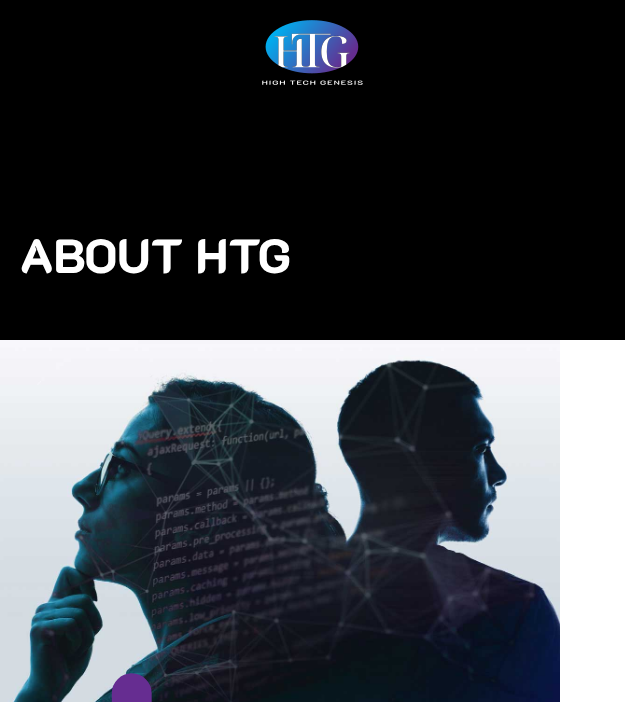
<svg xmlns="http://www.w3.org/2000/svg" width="625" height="702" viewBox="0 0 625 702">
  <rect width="100%" height="100%" fill="#ffffff"/>
  <rect x="0" y="0" width="625" height="340" fill="#000000"/>
  <image x="262" y="20" width="101" height="65" href="img1.png"/>
  <text x="20" y="273" font-family="'K2D'" font-size="48" font-weight="800" fill="#ffffff">ABOUT HTG</text>
  <image x="0" y="340" width="560" height="362" href="img2.png"/>
</svg>
